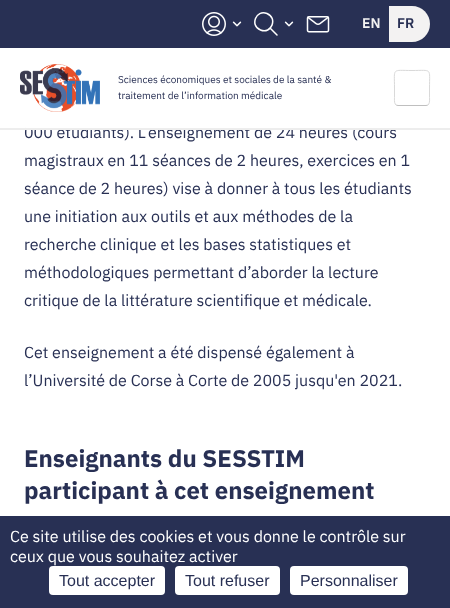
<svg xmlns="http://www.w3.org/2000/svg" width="450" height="608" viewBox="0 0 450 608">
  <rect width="100%" height="100%" fill="#ffffff"/>
  <rect x="0" y="0" width="450" height="48" fill="#283054"/>
  <image x="202" y="12" width="24" height="24" href="img1.png"/>
  <image x="232" y="21" width="10" height="6" href="img2.png"/>
  <path d="M267 13.5C278 18 271.5 34.5 260.5 30C249.5 26 256 9 267 13.5M270 28L277 35" fill="none" stroke="#ffffff" stroke-width="1.5" stroke-linecap="round" stroke-linejoin="round"/>
  <image x="284" y="21" width="10" height="6" href="img2.png"/>
  <image x="306" y="16" width="24" height="17" href="img3.png"/>
  <text x="362" y="28" font-family="IBM Plex Sans" font-size="14" font-weight="600" fill="#f3f2f2">EN</text>
  <path d="M389 6H412C422 6 430 14 430 24C430 34 422 42 412 42H389Z" fill="#f3f2f2"/>
  <text x="397" y="28" font-family="IBM Plex Sans" font-size="14" font-weight="600" fill="#283054">FR</text>
  <text x="24" y="138" font-family="IBM Plex Sans" font-size="16" fill="#283054">000 étudiants). L’enseignement de 24 heures (cours</text>
  <rect x="26" y="125" width="332" height="3" fill="#ffffff"/>
  <rect x="0" y="128" width="450" height="2" fill="#ededed"/>
  <image x="20" y="64" width="80" height="48" href="img4.png"/>
  <text x="118" y="83" font-family="IBM Plex Sans" font-size="10" fill="#283054">Sciences économiques et sociales de la santé &amp;</text>
  <text x="118" y="99" font-family="IBM Plex Sans" font-size="10" fill="#283054">traitement de l’information médicale</text>
  <path d="M428.5 104.5C428 105 427 105.5 426 105.5H398C397 105.5 396 105 395.5 104.5" fill="none" stroke="#bfbfbf"/>
  <path d="M395.5 104.5C394 102.5 394.5 99 394.5 97.5V88C394.5 67.5 391.5 70.5 412 70.5C432.5 70.5 429.5 67.5 429.5 88V97.5C429.5 99 430 102.5 428.5 104.5" fill="none" stroke="#d9d9d9"/>
  <text x="24" y="166" font-family="IBM Plex Sans" font-size="16" fill="#283054">magistraux en 11 séances de 2 heures, exercices en 1</text>
  <text x="24" y="194" font-family="IBM Plex Sans" font-size="16" fill="#283054">séance de 2 heures) vise à donner à tous les étudiants</text>
  <text x="24" y="222" font-family="IBM Plex Sans" font-size="16" fill="#283054">une initiation aux outils et aux méthodes de la</text>
  <text x="24" y="250" font-family="IBM Plex Sans" font-size="16" fill="#283054">recherche clinique et les bases statistiques et</text>
  <text x="24" y="278" font-family="IBM Plex Sans" font-size="16" fill="#283054">méthodologiques permettant d’aborder la lecture</text>
  <text x="24" y="306" font-family="IBM Plex Sans" font-size="16" fill="#283054">critique de la littérature scientifique et médicale.</text>
  <text x="24" y="358" font-family="IBM Plex Sans" font-size="16" fill="#283054">Cet enseignement a été dispensé également à</text>
  <text x="24" y="386" font-family="IBM Plex Sans" font-size="16" fill="#283054">l’Université de Corse à Corte de 2005 jusqu'en 2021.</text>
  <text x="24" y="467" font-family="IBM Plex Sans" font-size="24" font-weight="bold" fill="#283054">Enseignants du SESSTIM</text>
  <text x="24" y="499" font-family="IBM Plex Sans" font-size="24" font-weight="bold" fill="#283054">participant à cet enseignement</text>
  <rect x="0" y="516" width="450" height="92" fill="#283054"/>
  <text x="10" y="542" font-family="IBM Plex Sans" font-size="16" fill="#ffffff">Ce site utilise des cookies et vous donne le contrôle sur</text>
  <text x="10" y="562" font-family="IBM Plex Sans" font-size="16" fill="#ffffff">ceux que vous souhaitez activer</text>
  <rect x="49" y="566" width="116" height="29" rx="4" fill="#ffffff"/>
  <text x="59" y="586" font-family="Liberation Sans" font-size="16" fill="#283054">Tout accepter</text>
  <rect x="175" y="566" width="105" height="29" rx="4" fill="#ffffff"/>
  <text x="185" y="586" font-family="Liberation Sans" font-size="16" fill="#283054">Tout refuser</text>
  <rect x="290" y="566" width="118" height="29" rx="4" fill="#ffffff"/>
  <text x="300" y="586" font-family="Liberation Sans" font-size="16" fill="#283054">Personnaliser</text>
</svg>
